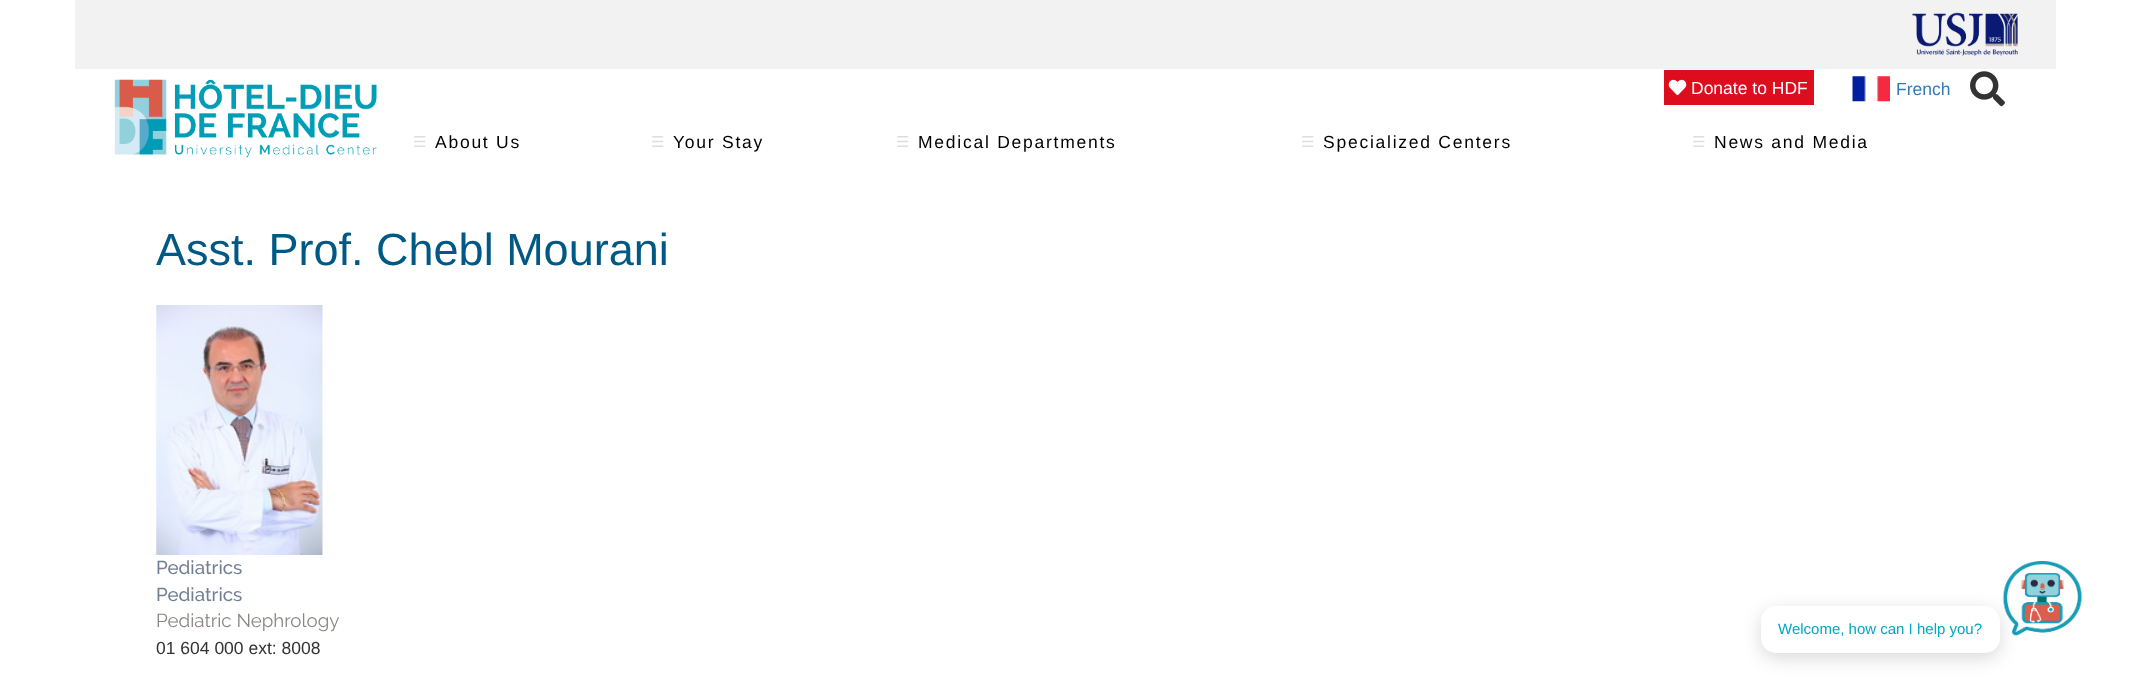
<svg xmlns="http://www.w3.org/2000/svg" width="2131" height="690" viewBox="0 0 2131 690">
  <defs>
    <filter id="blur1" x="-50%" y="-200%" width="200%" height="500%"><feGaussianBlur stdDeviation="9"/></filter>
  </defs>
  <rect width="100%" height="100%" fill="#ffffff"/>
  <rect x="75" y="0" width="1981" height="69" fill="#f3f2f3"/>
  <image x="1912" y="12" width="106" height="44" href="img1.png"/>
  <image x="114" y="79" width="263" height="79" href="img2.png"/>
  <rect x="1664" y="70" width="150" height="35" fill="#de0d1e"/>
  <image x="1668" y="79" width="19" height="17" href="img3.png"/>
  <text x="1691" y="94" font-family="Liberation Sans" font-size="17.5" fill="#ffffff">Donate to HDF</text>
  <image x="1852" y="76" width="38" height="26" href="img4.png"/>
  <text x="1896" y="95" font-family="Liberation Sans" font-size="17.5" fill="#337ab7">French</text>
  <image x="1970" y="71" width="35" height="36" href="img5.png"/>
  <text x="413" y="147" font-family="DejaVu Sans" font-size="15" letter-spacing="1.75" fill="#dedede">☰</text>
  <text x="435" y="148" font-family="Liberation Sans" font-size="17.5" letter-spacing="1.75" fill="#000000">About Us</text>
  <text x="651" y="147" font-family="DejaVu Sans" font-size="15" letter-spacing="1.75" fill="#dedede">☰</text>
  <text x="673" y="148" font-family="Liberation Sans" font-size="17.5" letter-spacing="1.75" fill="#000000">Your Stay</text>
  <text x="896" y="147" font-family="DejaVu Sans" font-size="15" letter-spacing="1.75" fill="#dedede">☰</text>
  <text x="918" y="148" font-family="Liberation Sans" font-size="17.5" letter-spacing="1.75" fill="#000000">Medical Departments</text>
  <text x="1301" y="147" font-family="DejaVu Sans" font-size="15" letter-spacing="1.75" fill="#dedede">☰</text>
  <text x="1323" y="148" font-family="Liberation Sans" font-size="17.5" letter-spacing="1.75" fill="#000000">Specialized Centers</text>
  <text x="1692" y="147" font-family="DejaVu Sans" font-size="15" letter-spacing="1.75" fill="#dedede">☰</text>
  <text x="1714" y="148" font-family="Liberation Sans" font-size="17.5" letter-spacing="1.75" fill="#000000">News and Media</text>
  <text x="156" y="265" font-family="Liberation Sans" font-size="45" fill="#005885">Asst. Prof. Chebl Mourani</text>
  <image x="156" y="305" width="167" height="250" href="img6.png"/>
  <text x="156" y="574" font-family="Raleway" font-size="18.75" font-weight="500" fill="#717f93">Pediatrics</text>
  <text x="156" y="601" font-family="Raleway" font-size="18.75" font-weight="500" fill="#717f93">Pediatrics</text>
  <text x="156" y="627" font-family="Raleway" font-size="18.75" fill="#8a8583">Pediatric Nephrology</text>
  <text x="156" y="654" font-family="Liberation Sans" font-size="17.5" fill="#333333">01 604 000 ext: 8008</text>
  <image x="2002" y="560" width="81" height="76" href="img7.png"/>
  <rect x="1761" y="611" width="239" height="47" rx="15" fill="#000000" fill-opacity="0.15" filter="url(#blur1)"/>
  <rect x="1761" y="606" width="239" height="47" rx="15" fill="#ffffff"/>
  <text x="1778" y="634" font-family="Liberation Sans" font-size="15" fill="#00a8c1">Welcome, how can I help you?</text>
</svg>
